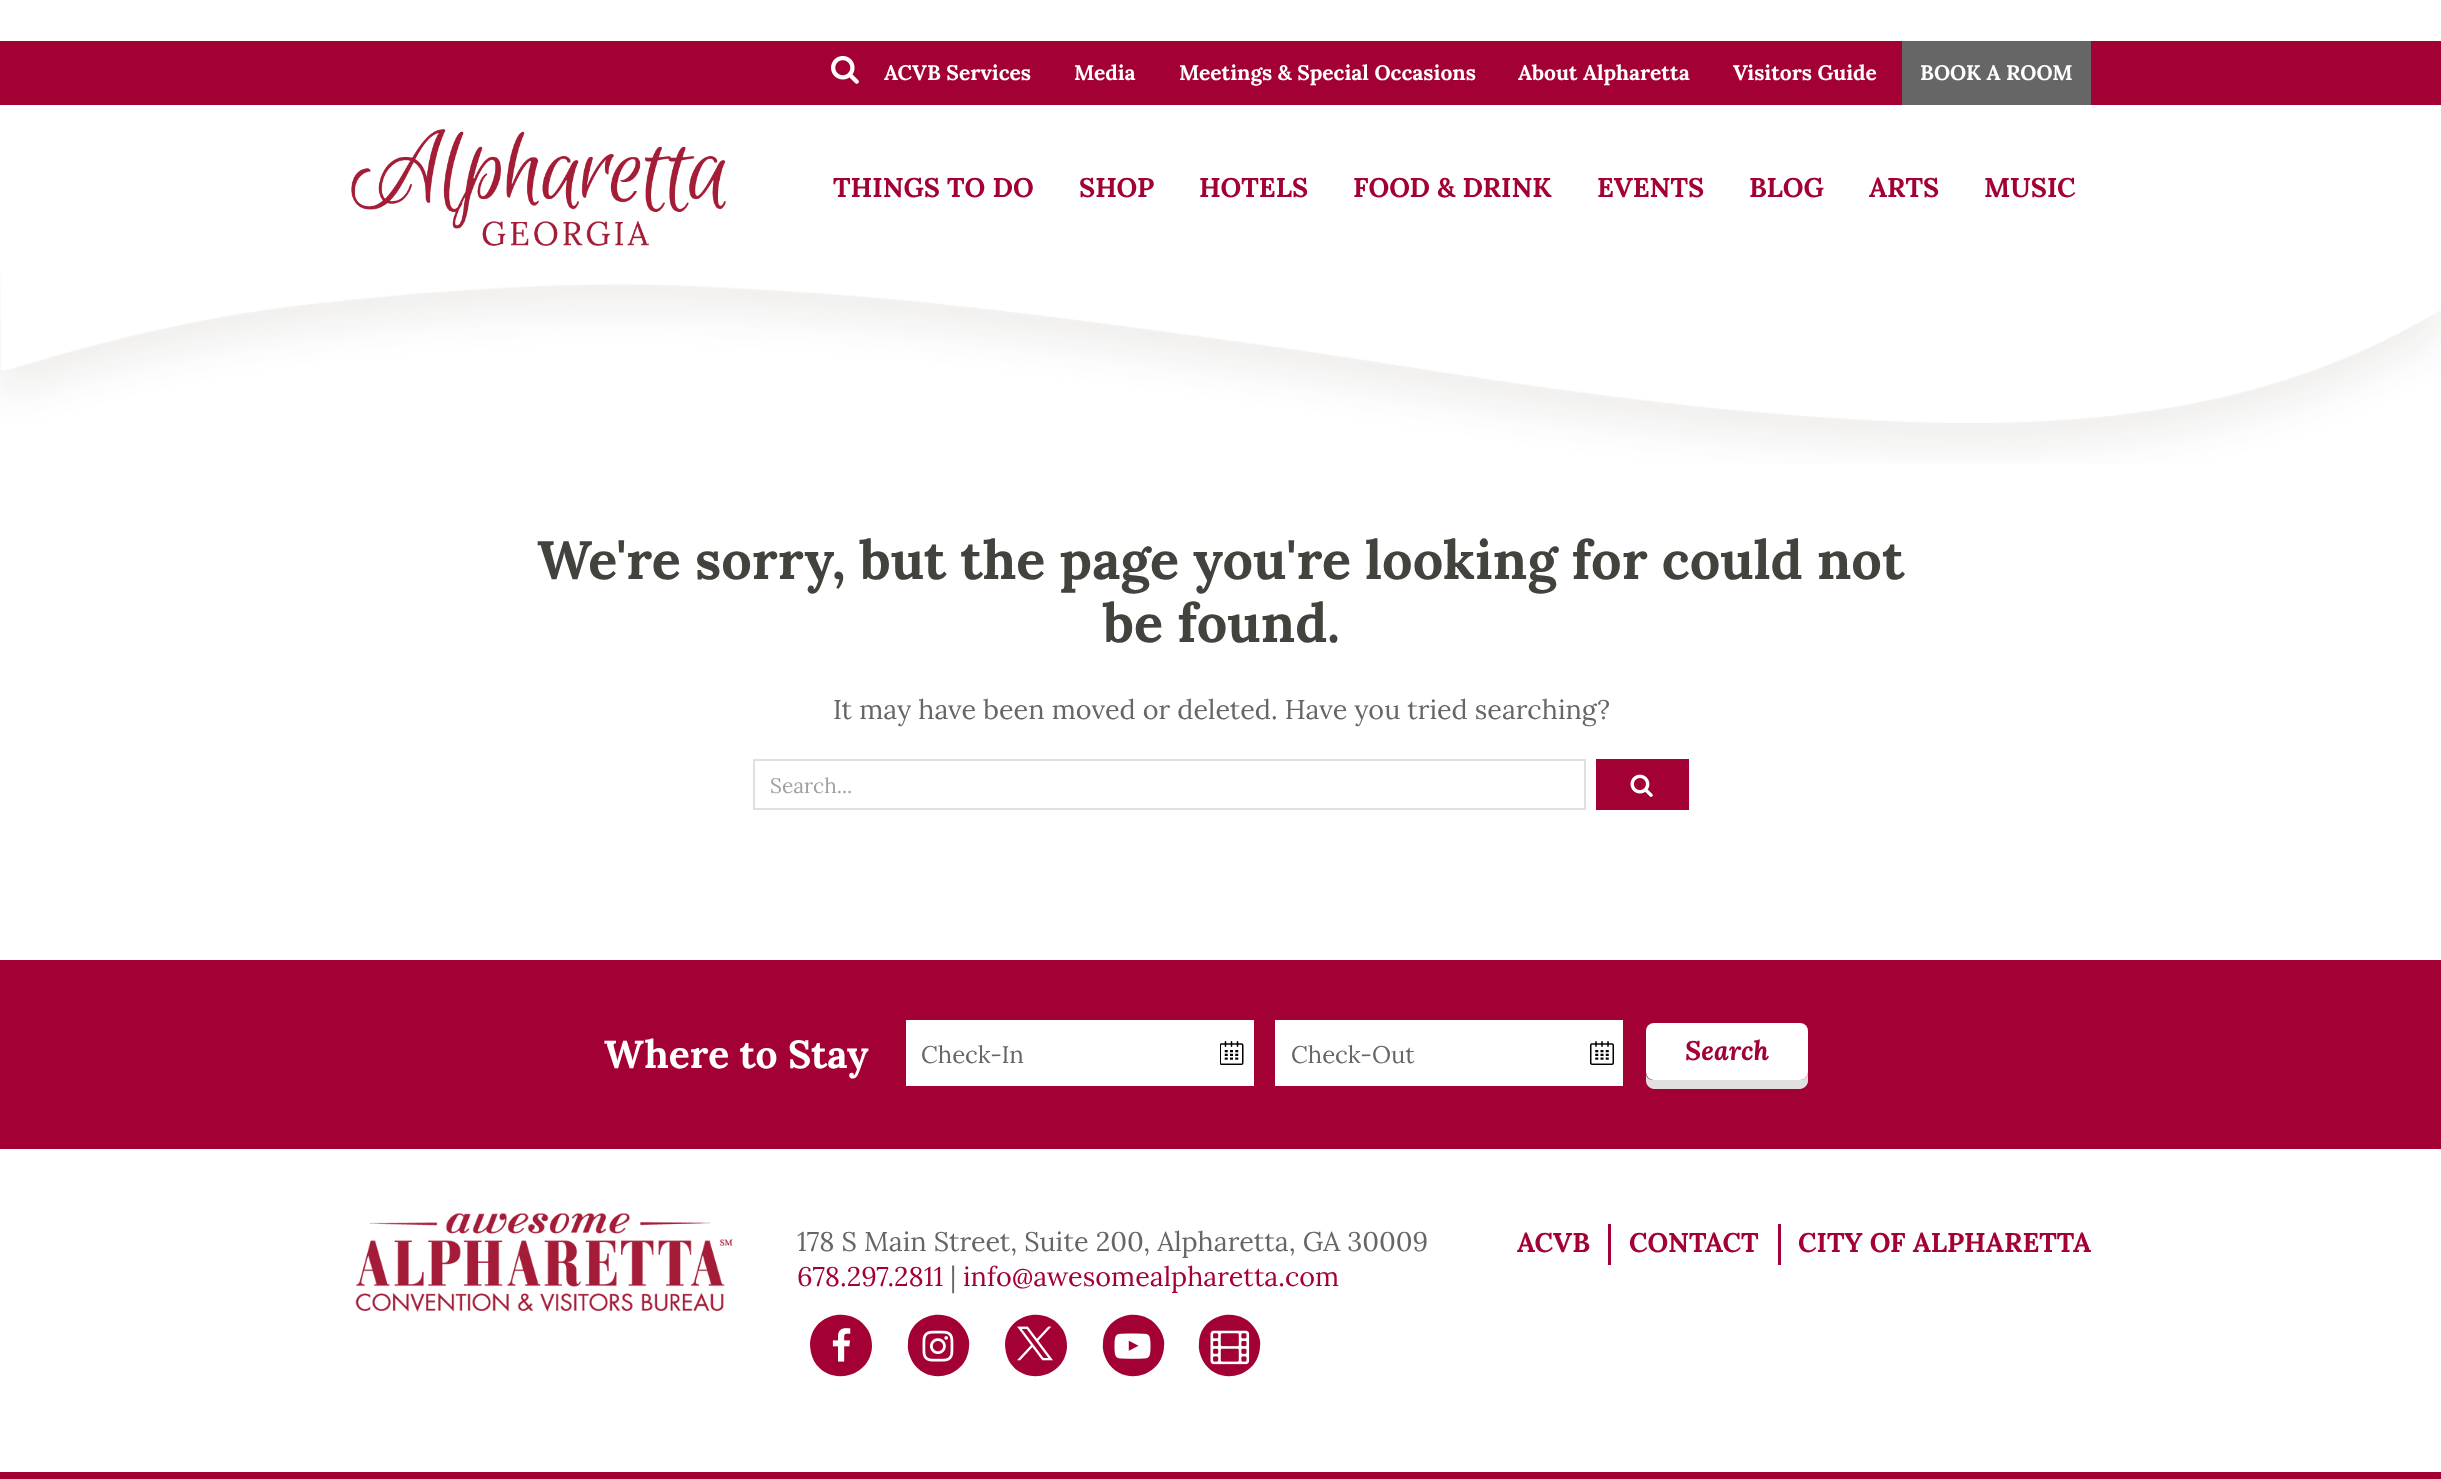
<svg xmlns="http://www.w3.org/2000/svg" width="2441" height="1479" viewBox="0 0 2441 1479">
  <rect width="100%" height="100%" fill="#ffffff"/>
  <rect x="0" y="41" width="2441" height="64" fill="#a30134"/>
  <image x="831" y="55" width="28" height="29" href="img1.png"/>
  <text x="884" y="80" font-family="Lora" font-size="21" font-weight="bold" fill="#ffffff">ACVB Services</text>
  <text x="1074" y="80" font-family="Lora" font-size="21" font-weight="bold" fill="#ffffff">Media</text>
  <text x="1179" y="80" font-family="Lora" font-size="21" font-weight="bold" fill="#ffffff">Meetings &amp; Special Occasions</text>
  <text x="1518" y="80" font-family="Lora" font-size="21" font-weight="bold" fill="#ffffff">About Alpharetta</text>
  <text x="1733" y="80" font-family="Lora" font-size="21" font-weight="bold" fill="#ffffff">Visitors Guide</text>
  <rect x="1902" y="41" width="189" height="64" fill="#666666"/>
  <text x="1920" y="80" font-family="Lora" font-size="21" font-weight="bold" fill="#ffffff">BOOK A ROOM</text>
  <image x="351" y="129" width="375" height="117" href="img2.png"/>
  <text x="833" y="197" font-family="Lora" font-size="27" font-weight="bold" fill="#a30134">THINGS TO DO</text>
  <text x="1079" y="197" font-family="Lora" font-size="27" font-weight="bold" fill="#a30134">SHOP</text>
  <text x="1199" y="197" font-family="Lora" font-size="27" font-weight="bold" fill="#a30134">HOTELS</text>
  <text x="1353" y="197" font-family="Lora" font-size="27" font-weight="bold" fill="#a30134">FOOD &amp; DRINK</text>
  <text x="1597" y="197" font-family="Lora" font-size="27" font-weight="bold" fill="#a30134">EVENTS</text>
  <text x="1749" y="197" font-family="Lora" font-size="27" font-weight="bold" fill="#a30134">BLOG</text>
  <text x="1869" y="197" font-family="Lora" font-size="27" font-weight="bold" fill="#a30134">ARTS</text>
  <text x="1984" y="197" font-family="Lora" font-size="27" font-weight="bold" fill="#a30134">MUSIC</text>
  <image x="0" y="270" width="2441" height="194" href="img3.png"/>
  <text x="537" y="579" font-family="Lora" font-size="54" font-weight="bold" fill="#41433d">We're sorry, but the page you're looking for could not</text>
  <text x="1103" y="642" font-family="Lora" font-size="54" font-weight="bold" fill="#41433d">be found.</text>
  <text x="833" y="719" font-family="Lora" font-size="27" fill="#666666">It may have been moved or deleted. Have you tried searching?</text>
  <rect x="754" y="760" width="831" height="49" fill="none" stroke="#e0e0e0" stroke-width="2"/>
  <text x="770" y="793" font-family="Lora" font-size="21" fill="#a1a1a1">Search...</text>
  <rect x="1596" y="759" width="93" height="51" fill="#a30134"/>
  <image x="1630" y="774" width="23" height="23" href="img4.png"/>
  <rect x="0" y="960" width="2441" height="189" fill="#a30134"/>
  <text x="604" y="1068" font-family="Lora" font-size="39" font-weight="bold" fill="#ffffff">Where to Stay</text>
  <rect x="906" y="1020" width="348" height="66" fill="#ffffff"/>
  <image x="1220" y="1041" width="24" height="24" href="img5.png"/>
  <text x="921" y="1063" font-family="Lora" font-size="24" fill="#666666">Check-In</text>
  <rect x="1275" y="1020" width="348" height="66" fill="#ffffff"/>
  <image x="1590" y="1041" width="24" height="24" href="img6.png"/>
  <text x="1291" y="1063" font-family="Lora" font-size="24" fill="#666666">Check-Out</text>
  <path d="M1646 1075V1081C1646 1085 1650 1089 1654 1089H1800C1804 1089 1808 1085 1808 1081V1040V1037V1072C1808 1077 1804 1080 1800 1080H1653C1650 1080 1647 1078 1646 1075Z" fill="#e0e0e0"/>
  <rect x="1646" y="1023" width="162" height="57" rx="8" fill="#ffffff"/>
  <text x="1685" y="1060" font-family="Lora" font-size="27" font-weight="bold" font-style="italic" fill="#a30134">Search</text>
  <image x="355" y="1213" width="378" height="99" href="img7.png"/>
  <text x="797" y="1251" font-family="Lora" font-size="27" fill="#666666">178 S Main Street, Suite 200, Alpharetta, GA 30009</text>
  <text x="797" y="1286" font-family="Lora" font-size="27" fill="#a30134">678.297.2811</text>
  <text x="950" y="1286" font-family="Lora" font-size="27" fill="#666666">|</text>
  <text x="963" y="1286" font-family="Lora" font-size="27" fill="#a30134">info@awesomealpharetta.com</text>
  <path d="M868 1330C871 1335 872 1341 872 1347C870 1378 829 1387 814 1361C811 1355 810 1349 810 1343C812 1313 852 1304 868 1330Z" fill="#a30134"/>
  <image x="832" y="1328" width="19" height="34" href="img8.png"/>
  <path d="M965 1330C968 1335 970 1341 969 1347C967 1378 927 1387 912 1361C909 1355 907 1349 908 1343C909 1313 950 1304 965 1330Z" fill="#a30134"/>
  <image x="922" y="1330" width="32" height="32" href="img9.png"/>
  <path d="M1063 1330C1066 1335 1067 1341 1067 1347C1065 1378 1024 1387 1009 1361C1006 1355 1005 1349 1005 1343C1007 1313 1047 1304 1063 1330Z" fill="#a30134"/>
  <image x="1017" y="1326" width="36" height="35" href="img10.png"/>
  <path d="M1160 1330C1163 1335 1165 1341 1164 1347C1162 1378 1122 1387 1107 1361C1104 1355 1102 1349 1103 1343C1104 1313 1145 1304 1160 1330Z" fill="#a30134"/>
  <image x="1114" y="1333" width="37" height="26" href="img11.png"/>
  <path d="M1256 1330C1259 1335 1261 1341 1260 1347C1258 1378 1218 1387 1203 1361C1200 1355 1198 1349 1199 1343C1200 1313 1241 1304 1256 1330Z" fill="#a30134"/>
  <image x="1210" y="1330" width="40" height="35" href="img12.png"/>
  <rect x="1608" y="1224" width="3" height="41" fill="#a30134"/>
  <text x="1517" y="1252" font-family="Lora" font-size="27" font-weight="bold" fill="#a30134">ACVB</text>
  <rect x="1778" y="1224" width="3" height="41" fill="#a30134"/>
  <text x="1629" y="1252" font-family="Lora" font-size="27" font-weight="bold" fill="#a30134">CONTACT</text>
  <text x="1798" y="1252" font-family="Lora" font-size="27" font-weight="bold" fill="#a30134">CITY OF ALPHARETTA</text>
  <rect x="0" y="1472" width="2441" height="7" fill="#a30134"/>
</svg>
